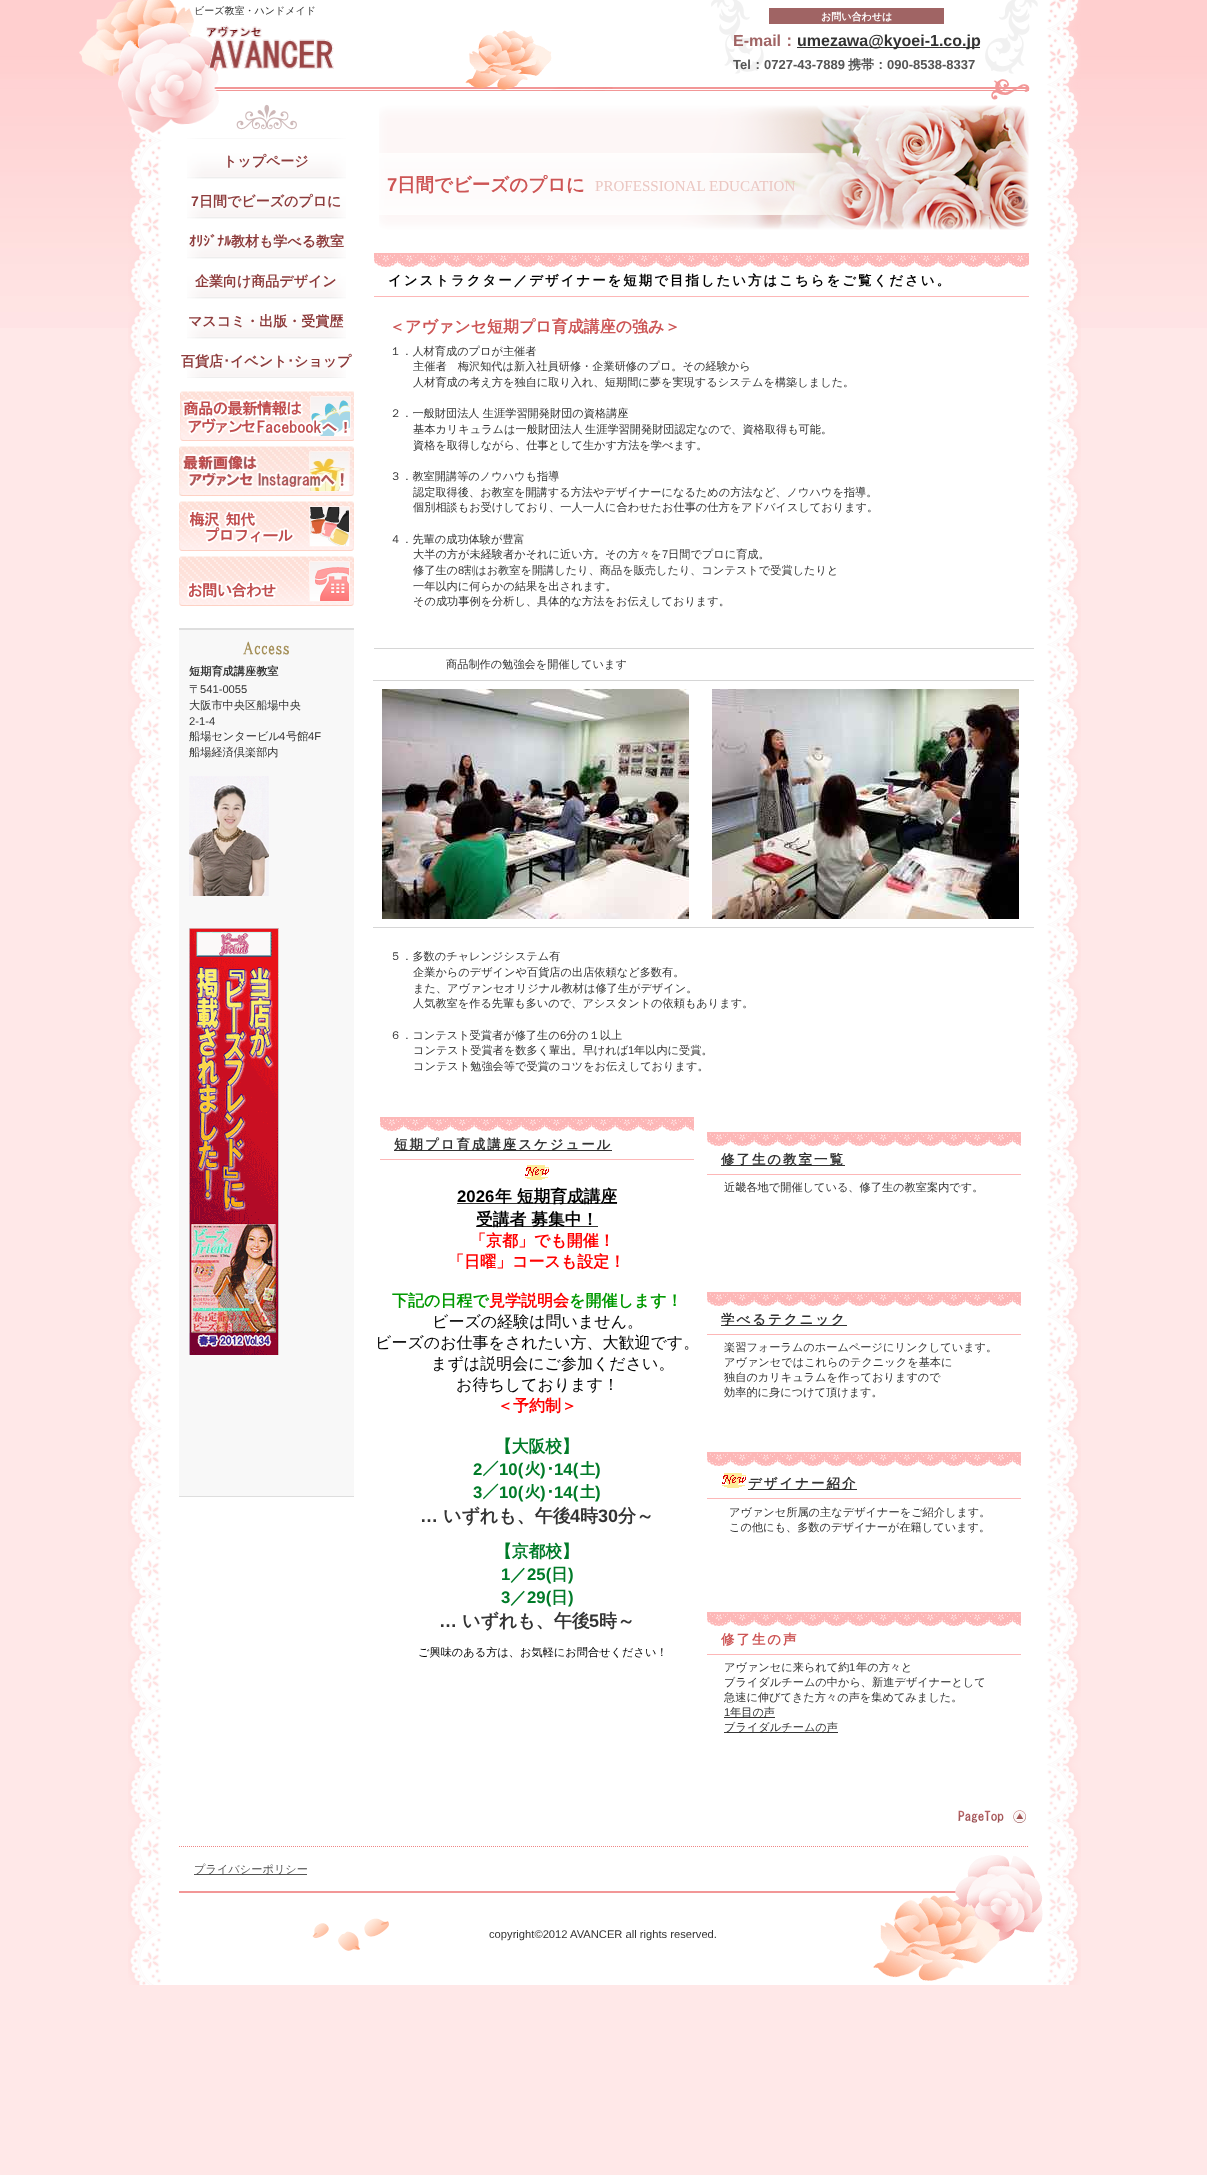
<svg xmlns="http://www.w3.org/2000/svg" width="1207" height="2175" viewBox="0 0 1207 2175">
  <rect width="100%" height="100%" fill="#ffe8e8"/>
  <image x="0" y="0" width="1207" height="328" href="img1.png"/>
  <image x="128" y="0" width="953" height="1985" href="img2.png"/>
  <image x="79" y="0" width="959" height="100" href="img3.png"/>
  <text x="194" y="14" font-family="WenQuanYi Zen Hei" font-size="10" font-weight="500" fill="#333333">ビーズ教室・ハンドメイド</text>
  <rect x="769" y="8" width="175" height="16" fill="#a06464"/>
  <text x="821" y="20" font-family="WenQuanYi Zen Hei" font-size="10" font-weight="bold" fill="#ffffff">お問い合わせは</text>
  <text x="733" y="46" font-family="Liberation Sans" font-size="16" font-weight="bold" fill="#a06464">E-mail</text>
  <text x="781" y="46" font-family="WenQuanYi Zen Hei" font-size="16" font-weight="bold" fill="#a06464">：</text>
  <rect x="797" y="47" width="183" height="1" fill="#333333"/>
  <text x="797" y="46" font-family="Liberation Sans" font-size="16" font-weight="bold" fill="#333333">umezawa@kyoei-1.co.jp</text>
  <text x="733" y="69" font-family="Liberation Sans" font-size="13" font-weight="bold" fill="#555555">Tel</text>
  <text x="751" y="69" font-family="WenQuanYi Zen Hei" font-size="13" font-weight="bold" fill="#555555">：</text>
  <text x="764" y="69" font-family="Liberation Sans" font-size="13" font-weight="bold" fill="#555555">0727-43-7889</text>
  <text x="848" y="69" font-family="WenQuanYi Zen Hei" font-size="13" font-weight="bold" fill="#555555">携帯：</text>
  <text x="887" y="69" font-family="Liberation Sans" font-size="13" font-weight="bold" fill="#555555">090-8538-8337</text>
  <image x="465" y="30" width="87" height="60" href="img4.png"/>
  <image x="206" y="25" width="128" height="44" href="img5.png"/>
  <image x="123" y="100" width="96" height="33" href="img6.png"/>
  <image x="236" y="104" width="61" height="26" href="img7.png"/>
  <image x="187" y="138" width="159" height="40" href="img8.png"/>
  <text x="223" y="166" font-family="WenQuanYi Zen Hei" font-size="14" font-weight="bold" fill="#8d3b3b">トップページ</text>
  <image x="187" y="178" width="159" height="40" href="img8.png"/>
  <text x="191" y="206" font-family="Liberation Sans" font-size="14" font-weight="bold" fill="#8d3b3b">7</text>
  <text x="199" y="206" font-family="WenQuanYi Zen Hei" font-size="14" font-weight="bold" fill="#8d3b3b">日間でビーズのプロに</text>
  <image x="187" y="218" width="159" height="40" href="img8.png"/>
  <text x="189" y="246" font-family="IPAPGothic" font-size="14" font-weight="bold" fill="#8d3b3b">ｵﾘｼﾞﾅﾙ</text>
  <text x="231" y="246" font-family="WenQuanYi Zen Hei" font-size="14" font-weight="bold" fill="#8d3b3b">教材も学べる教室</text>
  <image x="187" y="258" width="159" height="40" href="img8.png"/>
  <text x="195" y="286" font-family="WenQuanYi Zen Hei" font-size="14" font-weight="bold" fill="#8d3b3b">企業向け商品デザイン</text>
  <image x="187" y="298" width="159" height="40" href="img8.png"/>
  <text x="188" y="326" font-family="WenQuanYi Zen Hei" font-size="14" font-weight="bold" fill="#8d3b3b">マスコミ・出版・受賞歴</text>
  <image x="187" y="338" width="159" height="40" href="img8.png"/>
  <text x="181" y="366" font-family="WenQuanYi Zen Hei" font-size="14" font-weight="bold" fill="#8d3b3b">百貨店</text>
  <text x="223" y="366" font-family="IPAPGothic" font-size="14" font-weight="bold" fill="#8d3b3b">･</text>
  <text x="230" y="366" font-family="WenQuanYi Zen Hei" font-size="14" font-weight="bold" fill="#8d3b3b">イベント</text>
  <text x="287" y="366" font-family="IPAPGothic" font-size="14" font-weight="bold" fill="#8d3b3b">･</text>
  <text x="294" y="366" font-family="WenQuanYi Zen Hei" font-size="14" font-weight="bold" fill="#8d3b3b">ショップ</text>
  <image x="379" y="105" width="650" height="125" href="img9.png"/>
  <text x="387" y="191" font-family="Liberation Sans" font-size="18.5" font-weight="bold" fill="#cd5555">7</text>
  <text x="397" y="191" font-family="WenQuanYi Zen Hei" font-size="18.5" font-weight="bold" fill="#cd5555">日間でビーズのプロに</text>
  <text x="595" y="191" font-family="Liberation Serif" font-size="15.1" fill="#ebc7c2">PROFESSIONAL EDUCATION</text>
  <image x="374" y="253" width="655" height="14" href="img10.png"/>
  <rect x="374" y="296" width="655" height="1" fill="#fdb7b7"/>
  <text x="388" y="285" font-family="WenQuanYi Zen Hei" font-size="13.45" font-weight="bold" letter-spacing="2" fill="#000000">インストラクター／デザイナーを短期で目指したい方はこちらをご覧ください。</text>
  <text x="389" y="332" font-family="WenQuanYi Zen Hei" font-size="16" font-weight="bold" fill="#cd5555">＜アヴァンセ短期プロ育成講座の強み＞</text>
  <text x="390" y="355" font-family="WenQuanYi Zen Hei" font-size="11.2" font-weight="500" fill="#333333">１．人材育成のプロが主催者</text>
  <text x="413" y="370" font-family="WenQuanYi Zen Hei" font-size="11.2" font-weight="500" fill="#333333">主催者　梅沢知代は新入社員研修・企業研修のプロ。その経験から</text>
  <text x="413" y="386" font-family="WenQuanYi Zen Hei" font-size="11.2" font-weight="500" fill="#333333">人材育成の考え方を独自に取り入れ、短期間に夢を実現するシステムを構築しました。</text>
  <text x="390" y="417" font-family="WenQuanYi Zen Hei" font-size="11.2" font-weight="500" fill="#333333">２．一般財団法人 生涯学習開発財団の資格講座</text>
  <text x="413" y="433" word-spacing="-1" font-family="WenQuanYi Zen Hei" font-size="11.2" font-weight="500" fill="#333333">基本カリキュラムは一般財団法人 生涯学習開発財団認定なので、資格取得も可能。</text>
  <text x="413" y="449" font-family="WenQuanYi Zen Hei" font-size="11.2" font-weight="500" fill="#333333">資格を取得しながら、仕事として生かす方法を学べます。</text>
  <text x="390" y="480" font-family="WenQuanYi Zen Hei" font-size="11.2" font-weight="500" fill="#333333">３．教室開講等のノウハウも指導</text>
  <text x="413" y="496" font-family="WenQuanYi Zen Hei" font-size="11.2" font-weight="500" fill="#333333">認定取得後、お教室を開講する方法やデザイナーになるための方法など、ノウハウを指導。</text>
  <text x="413" y="511" font-family="WenQuanYi Zen Hei" font-size="11.2" font-weight="500" fill="#333333">個別相談もお受けしており、一人一人に合わせたお仕事の仕方をアドバイスしております。</text>
  <text x="390" y="543" font-family="WenQuanYi Zen Hei" font-size="11.2" font-weight="500" fill="#333333">４．先輩の成功体験が豊富</text>
  <text x="413" y="558" font-family="WenQuanYi Zen Hei" font-size="11.2" font-weight="500" fill="#333333">大半の方が未経験者かそれに近い方。その方々を</text>
  <text x="662" y="558" font-family="Liberation Sans" font-size="11.2" fill="#333333">7</text>
  <text x="668" y="558" font-family="WenQuanYi Zen Hei" font-size="11.2" font-weight="500" fill="#333333">日間でプロに育成。</text>
  <text x="413" y="574" font-family="WenQuanYi Zen Hei" font-size="11.2" font-weight="500" fill="#333333">修了生の</text>
  <text x="458" y="574" font-family="Liberation Sans" font-size="11.2" fill="#333333">8</text>
  <text x="464" y="574" font-family="WenQuanYi Zen Hei" font-size="11.2" font-weight="500" fill="#333333">割はお教室を開講したり、商品を販売したり、コンテストで受賞したりと</text>
  <text x="413" y="590" font-family="WenQuanYi Zen Hei" font-size="11.2" font-weight="500" fill="#333333">一年以内に何らかの結果を出されます。</text>
  <text x="413" y="605" font-family="WenQuanYi Zen Hei" font-size="11.2" font-weight="500" fill="#333333">その成功事例を分析し、具体的な方法をお伝えしております。</text>
  <rect x="374" y="648" width="660" height="1" fill="#d6d6d6"/>
  <text x="446" y="668" font-family="WenQuanYi Zen Hei" font-size="11.2" font-weight="500" fill="#333333">商品制作の勉強会を開催しています</text>
  <rect x="373" y="680" width="661" height="1" fill="#d6d6d6"/>
  <rect x="373" y="927" width="661" height="1" fill="#d6d6d6"/>
  <image x="712" y="689" width="307" height="230" href="img11.png"/>
  <image x="382" y="689" width="307" height="230" href="img12.png"/>
  <text x="390" y="960" font-family="WenQuanYi Zen Hei" font-size="11.2" font-weight="500" fill="#333333">５．多数のチャレンジシステム有</text>
  <text x="413" y="976" font-family="WenQuanYi Zen Hei" font-size="11.2" font-weight="500" fill="#333333">企業からのデザインや百貨店の出店依頼など多数有。</text>
  <text x="413" y="992" font-family="WenQuanYi Zen Hei" font-size="11.2" font-weight="500" fill="#333333">また、アヴァンセオリジナル教材は修了生がデザイン。</text>
  <text x="413" y="1007" font-family="WenQuanYi Zen Hei" font-size="11.2" font-weight="500" fill="#333333">人気教室を作る先輩も多いので、アシスタントの依頼もあります。</text>
  <text x="390" y="1039" font-family="WenQuanYi Zen Hei" font-size="11.2" font-weight="500" fill="#333333">６．コンテスト受賞者が修了生の</text>
  <text x="560" y="1039" font-family="Liberation Sans" font-size="11.2" fill="#333333">6</text>
  <text x="566" y="1039" font-family="WenQuanYi Zen Hei" font-size="11.2" font-weight="500" fill="#333333">分の１以上</text>
  <text x="413" y="1054" font-family="WenQuanYi Zen Hei" font-size="11.2" font-weight="500" fill="#333333">コンテスト受賞者を数多く輩出。早ければ</text>
  <text x="628" y="1054" font-family="Liberation Sans" font-size="11.2" fill="#333333">1</text>
  <text x="634" y="1054" font-family="WenQuanYi Zen Hei" font-size="11.2" font-weight="500" fill="#333333">年以内に受賞。</text>
  <text x="413" y="1070" font-family="WenQuanYi Zen Hei" font-size="11.2" font-weight="500" fill="#333333">コンテスト勉強会等で受賞のコツをお伝えしております。</text>
  <image x="380" y="1117" width="314" height="14" href="img13.png"/>
  <rect x="380" y="1159" width="314" height="1" fill="#fdb7b7"/>
  <rect x="394" y="1150" width="218" height="1" fill="#333333"/>
  <text x="394" y="1149" font-family="WenQuanYi Zen Hei" font-size="13.45" font-weight="bold" letter-spacing="2" fill="#333333">短期プロ育成講座スケジュール</text>
  <image x="525" y="1165" width="24" height="15" href="img14.png"/>
  <text x="457" y="1202" font-family="Liberation Sans" font-size="16.75" font-weight="bold" fill="#000000">2026</text>
  <rect x="457" y="1203" width="160" height="1" fill="#333333"/>
  <text x="495" y="1202" font-family="WenQuanYi Zen Hei" font-size="16.75" font-weight="bold" fill="#000000">年 短期育成講座</text>
  <rect x="476" y="1226" width="122" height="1" fill="#333333"/>
  <text x="476" y="1225" font-family="WenQuanYi Zen Hei" font-size="16.75" font-weight="bold" fill="#000000">受講者 募集中！</text>
  <text x="470" y="1246" font-family="WenQuanYi Zen Hei" font-size="16" font-weight="bold" fill="#ff0000">「京都」でも開催！</text>
  <text x="448" y="1267" font-family="WenQuanYi Zen Hei" font-size="16" font-weight="bold" fill="#ff0000">「日曜」コースも設定！</text>
  <text x="392" y="1306" font-family="WenQuanYi Zen Hei" font-size="16" font-weight="bold" fill="#009900">下記の日程で</text>
  <text x="489" y="1306" font-family="WenQuanYi Zen Hei" font-size="16" font-weight="bold" fill="#ff0000">見学説明会</text>
  <text x="569" y="1306" font-family="WenQuanYi Zen Hei" font-size="16" font-weight="bold" fill="#009900">を開催します！</text>
  <text x="432" y="1327" font-family="WenQuanYi Zen Hei" font-size="16" font-weight="500" fill="#000000">ビーズの経験は問いません。</text>
  <text x="375" y="1348" font-family="WenQuanYi Zen Hei" font-size="16" font-weight="500" fill="#000000">ビーズのお仕事をされたい方、大歓迎です。</text>
  <text x="431" y="1369" font-family="WenQuanYi Zen Hei" font-size="16" font-weight="500" fill="#000000">まずは説明会にご参加ください。</text>
  <text x="456" y="1390" font-family="WenQuanYi Zen Hei" font-size="16" font-weight="500" fill="#000000">お待ちしております！</text>
  <text x="497" y="1411" font-family="WenQuanYi Zen Hei" font-size="16" font-weight="bold" fill="#ff0000">＜予約制＞</text>
  <text x="495" y="1452" font-family="WenQuanYi Zen Hei" font-size="16.75" font-weight="bold" fill="#007b28">【大阪校】</text>
  <text x="473" y="1475" font-family="Liberation Sans" font-size="16.75" font-weight="bold" fill="#007b28">2</text>
  <text x="482" y="1475" font-family="IPAPGothic" font-size="16.75" font-weight="bold" fill="#007b28">／</text>
  <text x="499" y="1475" font-family="Liberation Sans" font-size="16.75" font-weight="bold" fill="#007b28">10(</text>
  <text x="524" y="1475" font-family="IPAPGothic" font-size="16.75" font-weight="bold" fill="#007b28">火</text>
  <text x="540" y="1475" font-family="Liberation Sans" font-size="16.75" font-weight="bold" fill="#007b28">)</text>
  <text x="546" y="1475" font-family="IPAPGothic" font-size="16.75" font-weight="bold" fill="#007b28">･</text>
  <text x="554" y="1475" font-family="Liberation Sans" font-size="16.75" font-weight="bold" fill="#007b28">14(</text>
  <text x="579" y="1475" font-family="IPAPGothic" font-size="16.75" font-weight="bold" fill="#007b28">土</text>
  <text x="595" y="1475" font-family="Liberation Sans" font-size="16.75" font-weight="bold" fill="#007b28">)</text>
  <text x="473" y="1498" font-family="Liberation Sans" font-size="16.75" font-weight="bold" fill="#007b28">3</text>
  <text x="482" y="1498" font-family="IPAPGothic" font-size="16.75" font-weight="bold" fill="#007b28">／</text>
  <text x="499" y="1498" font-family="Liberation Sans" font-size="16.75" font-weight="bold" fill="#007b28">10(</text>
  <text x="524" y="1498" font-family="IPAPGothic" font-size="16.75" font-weight="bold" fill="#007b28">火</text>
  <text x="540" y="1498" font-family="Liberation Sans" font-size="16.75" font-weight="bold" fill="#007b28">)</text>
  <text x="546" y="1498" font-family="IPAPGothic" font-size="16.75" font-weight="bold" fill="#007b28">･</text>
  <text x="554" y="1498" font-family="Liberation Sans" font-size="16.75" font-weight="bold" fill="#007b28">14(</text>
  <text x="579" y="1498" font-family="IPAPGothic" font-size="16.75" font-weight="bold" fill="#007b28">土</text>
  <text x="595" y="1498" font-family="Liberation Sans" font-size="16.75" font-weight="bold" fill="#007b28">)</text>
  <text x="420" y="1522" font-family="Liberation Sans" font-size="18" font-weight="bold" fill="#333333">…</text>
  <text x="443" y="1522" font-family="WenQuanYi Zen Hei" font-size="18" font-weight="bold" fill="#333333">いずれも、午後</text>
  <text x="570" y="1522" font-family="Liberation Sans" font-size="18" font-weight="bold" fill="#333333">4</text>
  <text x="580" y="1522" font-family="WenQuanYi Zen Hei" font-size="18" font-weight="bold" fill="#333333">時</text>
  <text x="598" y="1522" font-family="Liberation Sans" font-size="18" font-weight="bold" fill="#333333">30</text>
  <text x="618" y="1522" font-family="WenQuanYi Zen Hei" font-size="18" font-weight="bold" fill="#333333">分～</text>
  <text x="495" y="1557" font-family="WenQuanYi Zen Hei" font-size="16.75" font-weight="bold" fill="#007b28">【京都校】</text>
  <text x="501" y="1580" font-family="Liberation Sans" font-size="16.75" font-weight="bold" fill="#007b28">1</text>
  <text x="510" y="1580" font-family="WenQuanYi Zen Hei" font-size="16.75" font-weight="bold" fill="#007b28">／</text>
  <text x="527" y="1580" font-family="Liberation Sans" font-size="16.75" font-weight="bold" fill="#007b28">25(</text>
  <text x="551" y="1580" font-family="WenQuanYi Zen Hei" font-size="16.75" font-weight="bold" fill="#007b28">日</text>
  <text x="568" y="1580" font-family="Liberation Sans" font-size="16.75" font-weight="bold" fill="#007b28">)</text>
  <text x="501" y="1603" font-family="Liberation Sans" font-size="16.75" font-weight="bold" fill="#007b28">3</text>
  <text x="510" y="1603" font-family="WenQuanYi Zen Hei" font-size="16.75" font-weight="bold" fill="#007b28">／</text>
  <text x="527" y="1603" font-family="Liberation Sans" font-size="16.75" font-weight="bold" fill="#007b28">29(</text>
  <text x="551" y="1603" font-family="WenQuanYi Zen Hei" font-size="16.75" font-weight="bold" fill="#007b28">日</text>
  <text x="568" y="1603" font-family="Liberation Sans" font-size="16.75" font-weight="bold" fill="#007b28">)</text>
  <text x="439" y="1627" font-family="Liberation Sans" font-size="18" font-weight="bold" fill="#333333">…</text>
  <text x="462" y="1627" font-family="WenQuanYi Zen Hei" font-size="18" font-weight="bold" fill="#333333">いずれも、午後</text>
  <text x="589" y="1627" font-family="Liberation Sans" font-size="18" font-weight="bold" fill="#333333">5</text>
  <text x="599" y="1627" font-family="WenQuanYi Zen Hei" font-size="18" font-weight="bold" fill="#333333">時～</text>
  <text x="418" y="1656" font-family="WenQuanYi Zen Hei" font-size="11.2" font-weight="500" fill="#000000">ご興味のある方は、お気軽にお問合せください！</text>
  <image x="707" y="1132" width="314" height="14" href="img13.png"/>
  <rect x="707" y="1174" width="314" height="1" fill="#fdb7b7"/>
  <rect x="721" y="1165" width="124" height="1" fill="#333333"/>
  <text x="721" y="1164" font-family="WenQuanYi Zen Hei" font-size="13.45" font-weight="bold" letter-spacing="2" fill="#333333">修了生の教室一覧</text>
  <text x="724" y="1191" font-family="WenQuanYi Zen Hei" font-size="11.2" font-weight="500" fill="#333333">近畿各地で開催している、修了生の教室案内です。</text>
  <image x="707" y="1292" width="314" height="14" href="img13.png"/>
  <rect x="707" y="1334" width="314" height="1" fill="#fdb7b7"/>
  <rect x="721" y="1325" width="126" height="1" fill="#333333"/>
  <text x="721" y="1324" font-family="WenQuanYi Zen Hei" font-size="13.45" font-weight="bold" letter-spacing="2" fill="#333333">学べるテクニック</text>
  <text x="724" y="1351" font-family="WenQuanYi Zen Hei" font-size="11.2" font-weight="500" fill="#333333">楽習フォーラムのホームページにリンクしています。</text>
  <text x="724" y="1366" font-family="WenQuanYi Zen Hei" font-size="11.2" font-weight="500" fill="#333333">アヴァンセではこれらのテクニックを基本に</text>
  <text x="724" y="1381" font-family="WenQuanYi Zen Hei" font-size="11.2" font-weight="500" fill="#333333">独自のカリキュラムを作っておりますので</text>
  <text x="724" y="1396" font-family="WenQuanYi Zen Hei" font-size="11.2" font-weight="500" fill="#333333">効率的に身につけて頂けます。</text>
  <image x="707" y="1452" width="314" height="14" href="img13.png"/>
  <rect x="707" y="1498" width="314" height="1" fill="#fdb7b7"/>
  <image x="722" y="1473" width="24" height="15" href="img14.png"/>
  <rect x="748" y="1489" width="109" height="1" fill="#333333"/>
  <text x="748" y="1488" font-family="WenQuanYi Zen Hei" font-size="13.45" font-weight="bold" letter-spacing="2" fill="#333333">デザイナー紹介</text>
  <text x="729" y="1516" font-family="WenQuanYi Zen Hei" font-size="11.2" font-weight="500" fill="#333333">アヴァンセ所属の主なデザイナーをご紹介します。</text>
  <text x="729" y="1531" font-family="WenQuanYi Zen Hei" font-size="11.2" font-weight="500" fill="#333333">この他にも、多数のデザイナーが在籍しています。</text>
  <image x="707" y="1612" width="314" height="14" href="img13.png"/>
  <rect x="707" y="1654" width="314" height="1" fill="#fdb7b7"/>
  <text x="721" y="1644" font-family="WenQuanYi Zen Hei" font-size="13.45" font-weight="bold" letter-spacing="2" fill="#cd5555">修了生の声</text>
  <text x="724" y="1671" font-family="WenQuanYi Zen Hei" font-size="11.2" font-weight="500" fill="#333333">アヴァンセに来られて約</text>
  <text x="849" y="1671" font-family="Liberation Sans" font-size="11.2" fill="#333333">1</text>
  <text x="856" y="1671" font-family="WenQuanYi Zen Hei" font-size="11.2" font-weight="500" fill="#333333">年の方々と</text>
  <text x="724" y="1686" font-family="WenQuanYi Zen Hei" font-size="11.2" font-weight="500" fill="#333333">ブライダルチームの中から、新進デザイナーとして</text>
  <text x="724" y="1701" font-family="WenQuanYi Zen Hei" font-size="11.2" font-weight="500" fill="#333333">急速に伸びてきた方々の声を集めてみました。</text>
  <text x="724" y="1716" font-family="Liberation Sans" font-size="11.2" fill="#333333">1</text>
  <rect x="724" y="1717" width="51" height="1" fill="#333333"/>
  <text x="730" y="1716" font-family="WenQuanYi Zen Hei" font-size="11.2" font-weight="500" fill="#333333">年目の声</text>
  <rect x="724" y="1732" width="114" height="1" fill="#333333"/>
  <text x="724" y="1731" font-family="WenQuanYi Zen Hei" font-size="11.2" font-weight="500" fill="#333333">ブライダルチームの声</text>
  <image x="958" y="1810" width="68" height="13" href="img15.png"/>
  <image x="180" y="391" width="174" height="50" href="img16.png"/>
  <image x="179" y="446" width="175" height="50" href="img17.png"/>
  <image x="179" y="501" width="175" height="50" href="img18.png"/>
  <image x="179" y="556" width="175" height="50" href="img19.png"/>
  <rect x="179" y="630" width="175" height="866" fill="#f8f8f8"/>
  <rect x="179" y="628" width="175" height="2" fill="#dedede"/>
  <rect x="179" y="1496" width="175" height="1" fill="#dedede"/>
  <image x="243" y="641" width="46" height="14" href="img20.png"/>
  <text x="189" y="675" font-family="WenQuanYi Zen Hei" font-size="11.2" font-weight="bold" fill="#333333">短期育成講座教室</text>
  <text x="189" y="693" font-family="WenQuanYi Zen Hei" font-size="11.2" font-weight="500" fill="#333333">〒</text>
  <text x="200" y="693" font-family="Liberation Sans" font-size="11.2" fill="#333333">541-0055</text>
  <text x="189" y="709" font-family="WenQuanYi Zen Hei" font-size="11.2" font-weight="500" fill="#333333">大阪市中央区船場中央</text>
  <text x="189" y="725" font-family="Liberation Sans" font-size="11.2" fill="#333333">2-1-4</text>
  <text x="189" y="740" font-family="WenQuanYi Zen Hei" font-size="11.2" font-weight="500" fill="#333333">船場センタービル</text>
  <text x="279" y="740" font-family="Liberation Sans" font-size="11.2" fill="#333333">4</text>
  <text x="286" y="740" font-family="WenQuanYi Zen Hei" font-size="11.2" font-weight="500" fill="#333333">号館</text>
  <text x="308" y="740" font-family="Liberation Sans" font-size="11.2" fill="#333333">4F</text>
  <text x="189" y="756" font-family="WenQuanYi Zen Hei" font-size="11.2" font-weight="500" fill="#333333">船場経済倶楽部内</text>
  <image x="189" y="776" width="80" height="120" href="img21.png"/>
  <image x="189" y="928" width="90" height="427" href="img22.png"/>
  <image x="179" y="1855" width="864" height="126" href="img23.png"/>
  <path d="M179 1846.5H1029" fill="none" stroke="#ef8686" stroke-dasharray="1 1"/>
  <rect x="194" y="1874" width="113" height="1" fill="#555555"/>
  <text x="194" y="1873" font-family="WenQuanYi Zen Hei" font-size="11.2" font-weight="500" fill="#555555">プライバシーポリシー</text>
  <text x="489" y="1938" font-family="Liberation Sans" font-size="11.2" fill="#333333">copyright©2012 AVANCER all rights reserved.</text>
</svg>
